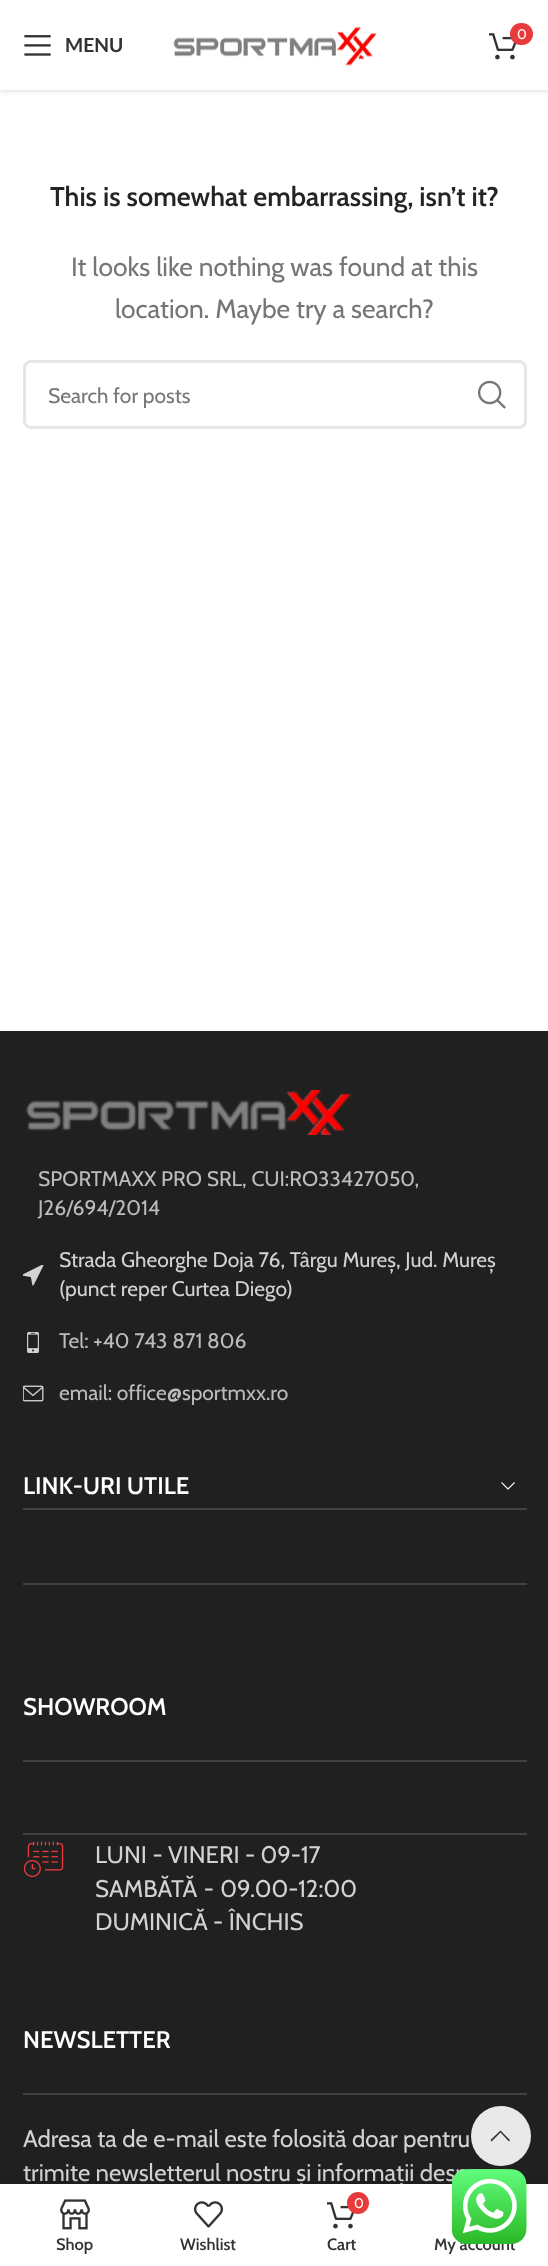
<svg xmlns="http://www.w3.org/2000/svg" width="548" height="2266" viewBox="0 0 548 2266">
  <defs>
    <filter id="blur1" x="-50%" y="-200%" width="200%" height="500%"><feGaussianBlur stdDeviation="2"/></filter>
    <filter id="blur2" x="-50%" y="-200%" width="200%" height="500%"><feGaussianBlur stdDeviation="7"/></filter>
  </defs>
  <rect width="100%" height="100%" fill="#ffffff"/>
  <rect x="0" y="2" width="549" height="90" fill="#000000" fill-opacity="0.1" filter="url(#blur1)"/>
  <rect x="0" y="0" width="548" height="90" fill="#ffffff"/>
  <image x="173" y="26" width="204" height="40" href="img1.png"/>
  <image x="489" y="33" width="28" height="27" href="img2.png"/>
  <rect x="510" y="23" width="23" height="22" rx="11" fill="#e83a3a"/>
  <text x="517" y="39" font-family="Cabin" font-size="14" fill="#ffffff">0</text>
  <image x="24" y="35" width="27" height="21" href="img3.png"/>
  <text x="65" y="52" font-family="Lato" font-size="19.5" font-weight="bold" fill="#333333">MENU</text>
  <text x="50" y="206" font-family="Cabin" font-size="27" font-weight="600" fill="#242424">This is somewhat embarrassing, isn’t it?</text>
  <text x="71" y="276" font-family="Cabin" font-size="26.4" fill="#767676">It looks like nothing was found at this</text>
  <text x="115" y="318" font-family="Cabin" font-size="26.4" fill="#767676">location. Maybe try a search?</text>
  <rect x="24.5" y="361.5" width="501" height="66" rx="6.5" fill="none" stroke="#e6e6e6" stroke-width="3"/>
  <text x="48" y="403" font-family="Cabin" font-size="21" fill="#767676">Search for posts</text>
  <image x="477" y="380" width="29" height="29" href="img4.png"/>
  <rect x="0" y="1031" width="548" height="1153" fill="#202020"/>
  <image x="25" y="1090" width="327" height="45" href="img5.png"/>
  <text x="38" y="1186" font-family="Cabin" font-size="21" fill="#bcbcbc">SPORTMAXX PRO SRL, CUI:RO33427050,</text>
  <text x="38" y="1215" font-family="Cabin" font-size="21" fill="#bcbcbc">J26/694/2014</text>
  <image x="23" y="1265" width="21" height="21" href="img6.png"/>
  <text x="59" y="1267" font-family="Cabin" font-size="21" fill="#d2d2d2">Strada Gheorghe Doja 76, Târgu Mureș, Jud. Mureș</text>
  <text x="59" y="1296" font-family="Cabin" font-size="21" fill="#d2d2d2">(punct reper Curtea Diego)</text>
  <image x="27" y="1332" width="12" height="21" href="img7.png"/>
  <text x="59" y="1348" font-family="Cabin" font-size="21" fill="#bcbcbc">Tel: +40 743 871 806</text>
  <image x="23" y="1385" width="21" height="17" href="img8.png"/>
  <text x="59" y="1400" font-family="Cabin" font-size="21" fill="#bcbcbc">email: office@sportmxx.ro</text>
  <rect x="23" y="1508" width="504" height="2" fill="#414141"/>
  <text x="23" y="1494" font-family="Cabin" font-size="24" font-weight="600" fill="#ffffff">LINK-URI UTILE</text>
  <image x="501" y="1482" width="14" height="8" href="img9.png"/>
  <rect x="23" y="1583" width="504" height="2" fill="#414141"/>
  <rect x="23" y="1760" width="504" height="2" fill="#414141"/>
  <text x="23" y="1715" font-family="Cabin" font-size="24" font-weight="600" fill="#ffffff">SHOWROOM</text>
  <rect x="23" y="1833" width="504" height="2" fill="#414141"/>
  <image x="23" y="1841" width="41" height="37" href="img10.png"/>
  <text x="95" y="1863" font-family="Cabin" font-size="24" fill="#d2d2d2">LUNI - VINERI - 09-17</text>
  <text x="95" y="1897" word-spacing="1" font-family="Cabin" font-size="24" fill="#d2d2d2">SAMBĂTĂ - 09.00-12:00</text>
  <text x="95" y="1930" font-family="Cabin" font-size="24" fill="#d2d2d2">DUMINICĂ - ÎNCHIS</text>
  <rect x="23" y="2093" width="504" height="2" fill="#414141"/>
  <text x="23" y="2048" font-family="Cabin" font-size="24" font-weight="600" fill="#ffffff">NEWSLETTER</text>
  <text x="23" y="2147" font-family="Cabin" font-size="24" fill="#d2d2d2">Adresa ta de e-mail este folosită doar pentru</text>
  <text x="23" y="2181" font-family="Cabin" font-size="24" fill="#d2d2d2">trimite newsletterul nostru și informații desp</text>
  <circle cx="501" cy="2136" r="30" fill="#ffffff" fill-opacity="0.9"/>
  <path d="M509 2141.5L510 2140L500.5 2130.5L490.5 2140L491.5 2141.5L500.5 2132.5Z" fill="#333333"/>
  <rect x="0" y="2184" width="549" height="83" fill="#000000" fill-opacity="0.12" filter="url(#blur2)"/>
  <rect x="0" y="2184" width="548" height="82" fill="#ffffff"/>
  <text x="434" y="2250" font-family="Cabin" font-size="16.5" font-weight="600" fill="#333333">My account</text>
  <image x="452" y="2169" width="75" height="75" href="img11.png"/>
  <image x="60" y="2199" width="30" height="31" href="img12.png"/>
  <text x="56" y="2250" font-family="Cabin" font-size="16.5" font-weight="600" fill="#333333">Shop</text>
  <image x="194" y="2201" width="29" height="27" href="img13.png"/>
  <text x="180" y="2250" font-family="Cabin" font-size="16.5" font-weight="600" fill="#333333">Wishlist</text>
  <image x="327" y="2202" width="27" height="27" href="img14.png"/>
  <circle cx="358" cy="2203" r="11" fill="#e83a3a"/>
  <text x="354" y="2208" font-family="Cabin" font-size="14" fill="#ffffff">0</text>
  <text x="327" y="2250" font-family="Cabin" font-size="16.5" font-weight="600" fill="#333333">Cart</text>
</svg>
